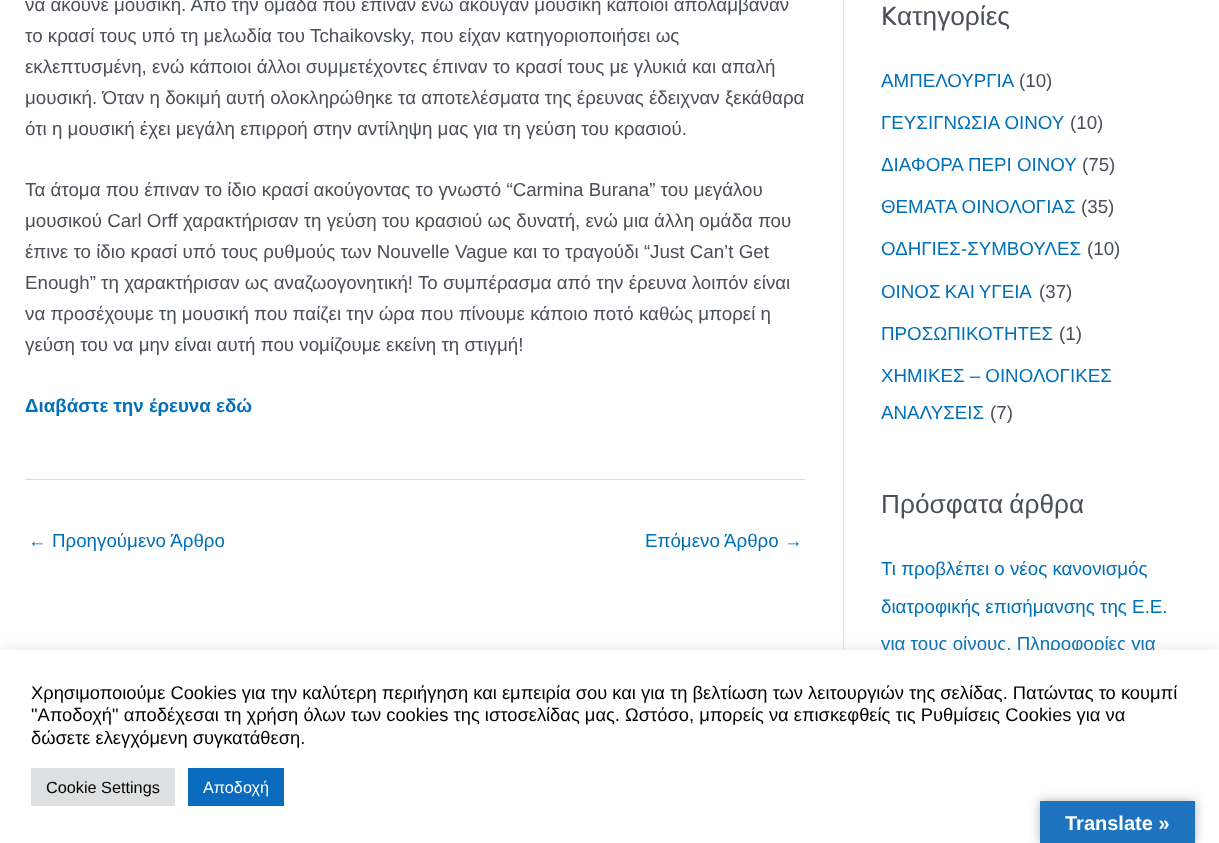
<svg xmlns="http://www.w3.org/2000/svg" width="1219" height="843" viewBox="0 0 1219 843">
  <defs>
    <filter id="blur1" x="-50%" y="-200%" width="200%" height="500%"><feGaussianBlur stdDeviation="6"/></filter>
    <filter id="blur2" x="-50%" y="-200%" width="200%" height="500%"><feGaussianBlur stdDeviation="5.5"/></filter>
  </defs>
  <rect width="100%" height="100%" fill="#ffffff"/>
  <text x="25" y="11" font-family="Liberation Sans" font-size="18.75" fill="#4b4f58">να ακούνε μουσική. Από την ομάδα που έπιναν ενώ άκουγαν μουσική κάποιοι απολάμβαναν</text>
  <text x="25" y="42" font-family="Liberation Sans" font-size="18.75" fill="#4b4f58">το κρασί τους υπό τη μελωδία του Tchaikovsky, που είχαν κατηγοριοποιήσει ως</text>
  <text x="25" y="73" font-family="Liberation Sans" font-size="18.75" fill="#4b4f58">εκλεπτυσμένη, ενώ κάποιοι άλλοι συμμετέχοντες έπιναν το κρασί τους με γλυκιά και απαλή</text>
  <text x="25" y="104" font-family="Liberation Sans" font-size="18.75" fill="#4b4f58">μουσική. Όταν η δοκιμή αυτή ολοκληρώθηκε τα αποτελέσματα της έρευνας έδειχναν ξεκάθαρα</text>
  <text x="25" y="135" font-family="Liberation Sans" font-size="18.75" fill="#4b4f58">ότι η μουσική έχει μεγάλη επιρροή στην αντίληψη μας για τη γεύση του κρασιού.</text>
  <text x="25" y="196" font-family="Liberation Sans" font-size="18.75" fill="#4b4f58">Τα άτομα που έπιναν το ίδιο κρασί ακούγοντας το γνωστό “Carmina Burana” του μεγάλου</text>
  <text x="25" y="227" font-family="Liberation Sans" font-size="18.75" fill="#4b4f58">μουσικού Carl Orff χαρακτήρισαν τη γεύση του κρασιού ως δυνατή, ενώ μια άλλη ομάδα που</text>
  <text x="25" y="258" font-family="Liberation Sans" font-size="18.75" fill="#4b4f58">έπινε το ίδιο κρασί υπό τους ρυθμούς των Νouvelle Vague και το τραγούδι “Just Can’t Get</text>
  <text x="25" y="289" font-family="Liberation Sans" font-size="18.75" fill="#4b4f58">Enough” τη χαρακτήρισαν ως αναζωογονητική! Το συμπέρασμα από την έρευνα λοιπόν είναι</text>
  <text x="25" y="320" font-family="Liberation Sans" font-size="18.75" fill="#4b4f58">να προσέχουμε τη μουσική που παίζει την ώρα που πίνουμε κάποιο ποτό καθώς μπορεί η</text>
  <text x="25" y="351" font-family="Liberation Sans" font-size="18.75" fill="#4b4f58">γεύση του να μην είναι αυτή που νομίζουμε εκείνη τη στιγμή!</text>
  <text x="25" y="412" font-family="Liberation Sans" font-size="18.75" font-weight="bold" fill="#0170b9">Διαβάστε την έρευνα εδώ</text>
  <rect x="25" y="479" width="780" height="1" fill="#dddddd"/>
  <text x="28" y="547" font-family="Liberation Sans" font-size="18.75" fill="#0170b9">← Προηγούμενο Άρθρο</text>
  <text x="645" y="547" font-family="Liberation Sans" font-size="18.75" fill="#0170b9">Επόμενο Άρθρο →</text>
  <rect x="843" y="0" width="1" height="650" fill="#dddddd"/>
  <text x="881" y="25" font-family="Rubik" font-size="26.25" fill="#4b4f58">K</text>
  <text x="897" y="25" font-family="Liberation Sans" font-size="26.25" fill="#4b4f58">ατηγορίες</text>
  <text x="881" y="87" font-family="Liberation Sans" font-size="18.75" fill="#0170b9">ΑΜΠΕΛΟΥΡΓΙΑ</text>
  <text x="1019" y="87" font-family="Liberation Sans" font-size="18.75" fill="#4b4f58">(10)</text>
  <text x="881" y="129" font-family="Liberation Sans" font-size="18.75" fill="#0170b9">ΓΕΥΣΙΓΝΩΣΙΑ ΟΙΝΟΥ</text>
  <text x="1070" y="129" font-family="Liberation Sans" font-size="18.75" fill="#4b4f58">(10)</text>
  <text x="881" y="171" font-family="Liberation Sans" font-size="18.75" fill="#0170b9">ΔΙΑΦΟΡΑ ΠΕΡΙ ΟΙΝΟΥ</text>
  <text x="1082" y="171" font-family="Liberation Sans" font-size="18.75" fill="#4b4f58">(75)</text>
  <text x="881" y="213" font-family="Liberation Sans" font-size="18.75" fill="#0170b9">ΘΕΜΑΤΑ ΟΙΝΟΛΟΓΙΑΣ</text>
  <text x="1081" y="213" font-family="Liberation Sans" font-size="18.75" fill="#4b4f58">(35)</text>
  <text x="881" y="255" font-family="Liberation Sans" font-size="18.75" fill="#0170b9">ΟΔΗΓΙΕΣ-ΣΥΜΒΟΥΛΕΣ</text>
  <text x="1087" y="255" font-family="Liberation Sans" font-size="18.75" fill="#4b4f58">(10)</text>
  <text x="881" y="298" word-spacing="-1" font-family="Liberation Sans" font-size="18.75" fill="#0170b9">ΟΙΝΟΣ ΚΑΙ ΥΓΕΙΑ</text>
  <text x="1039" y="298" font-family="Liberation Sans" font-size="18.75" fill="#4b4f58">(37)</text>
  <text x="881" y="340" font-family="Liberation Sans" font-size="18.75" fill="#0170b9">ΠΡΟΣΩΠΙΚΟΤΗΤΕΣ</text>
  <text x="1059" y="340" font-family="Liberation Sans" font-size="18.75" fill="#4b4f58">(1)</text>
  <text x="881" y="382" font-family="Liberation Sans" font-size="18.75" fill="#0170b9">ΧΗΜΙΚΕΣ – ΟΙΝΟΛΟΓΙΚΕΣ</text>
  <text x="881" y="419" font-family="Liberation Sans" font-size="18.75" fill="#0170b9">ΑΝΑΛΥΣΕΙΣ</text>
  <text x="990" y="419" font-family="Liberation Sans" font-size="18.75" fill="#4b4f58">(7)</text>
  <text x="881" y="513" word-spacing="-1" font-family="Liberation Sans" font-size="26.25" fill="#4b4f58">Πρόσφατα άρθρα</text>
  <text x="881" y="575" font-family="Liberation Sans" font-size="18.75" fill="#0170b9">Τι προβλέπει ο νέος κανονισμός</text>
  <text x="881" y="613" font-family="Liberation Sans" font-size="18.75" fill="#0170b9">διατροφικής επισήμανσης της Ε.Ε.</text>
  <text x="881" y="650" font-family="Liberation Sans" font-size="18.75" fill="#0170b9">για τους οίνους. Πληροφορίες για</text>
  <rect x="0" y="649" width="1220" height="194" fill="#acabab" fill-opacity="0.3" filter="url(#blur1)"/>
  <rect x="0" y="650" width="1219" height="193" fill="#ffffff"/>
  <text x="31" y="699" font-family="Liberation Sans" font-size="18.33" fill="#000000">Χρησιμοποιούμε Cookies για την καλύτερη περιήγηση και εμπειρία σου και για τη βελτίωση των λειτουργιών της σελίδας. Πατώντας το κουμπί</text>
  <text x="31" y="721" font-family="Liberation Sans" font-size="18.33" fill="#000000">"Αποδοχή" αποδέχεσαι τη χρήση όλων των cookies της ιστοσελίδας μας. Ωστόσο, μπορείς να επισκεφθείς τις Ρυθμίσεις Cookies για να</text>
  <text x="31" y="744" font-family="Liberation Sans" font-size="18.33" fill="#000000">δώσετε ελεγχόμενη συγκατάθεση.</text>
  <rect x="31" y="768" width="144" height="38" fill="#dedfe0"/>
  <text x="46" y="793" font-family="Liberation Sans" font-size="16.25" fill="#000000">Cookie Settings</text>
  <rect x="188" y="768" width="96" height="38" fill="#0b6bbf"/>
  <text x="203" y="793" font-family="Liberation Sans" font-size="16.25" fill="#ffffff">Αποδοχή</text>
  <rect x="1040" y="801" width="155" height="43" fill="#000000" fill-opacity="0.3" filter="url(#blur2)"/>
  <rect x="1040" y="801" width="155" height="42" fill="#1e73be"/>
  <text x="1065" y="830" font-family="Liberation Sans" font-size="20" font-weight="bold" fill="#ffffff">Translate »</text>
</svg>
